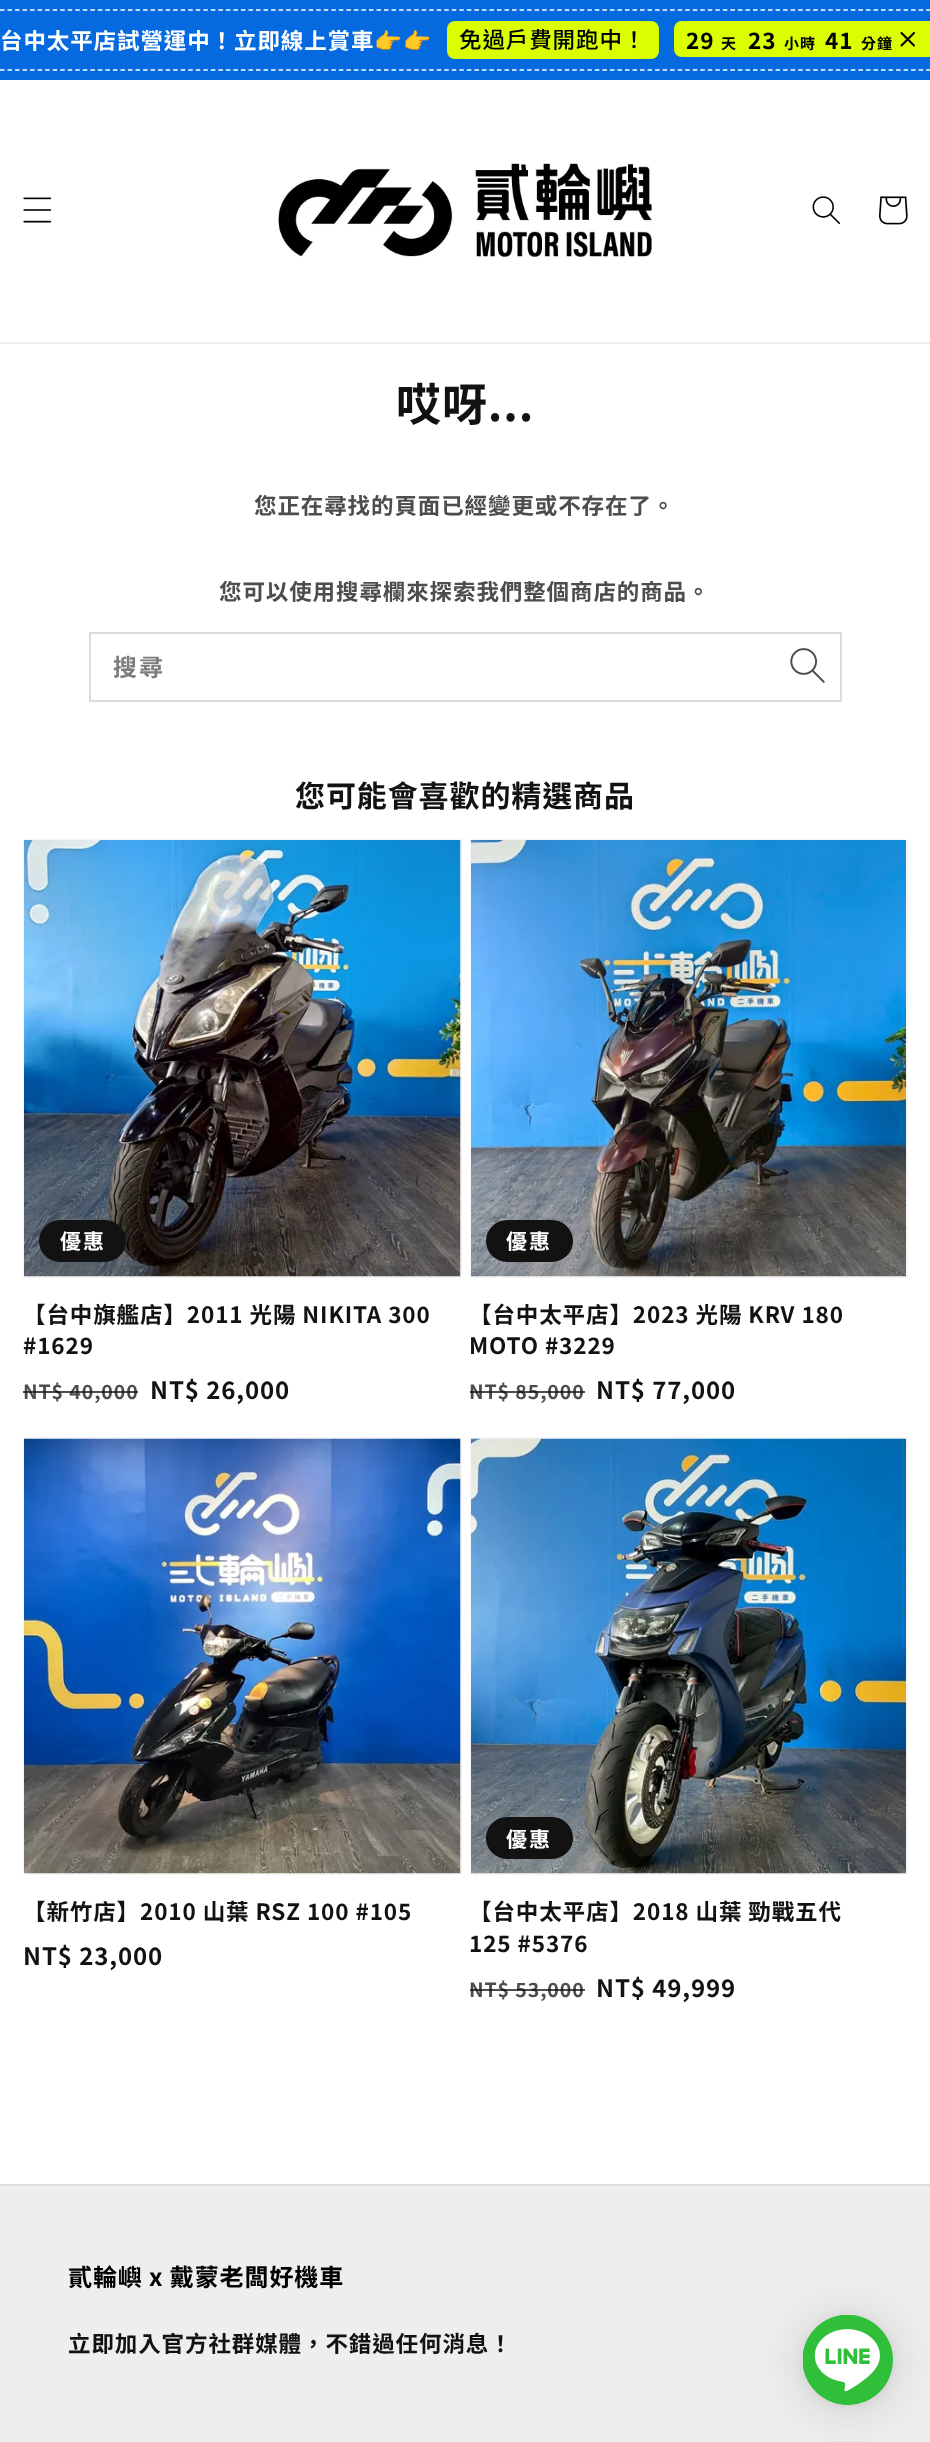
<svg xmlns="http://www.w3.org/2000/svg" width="930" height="2442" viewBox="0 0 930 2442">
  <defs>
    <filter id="blur1" x="-50%" y="-200%" width="200%" height="500%"><feGaussianBlur stdDeviation="24"/></filter>
    <filter id="blur2" x="-50%" y="-200%" width="200%" height="500%"><feGaussianBlur stdDeviation="4.5"/></filter>
  </defs>
  <rect width="100%" height="100%" fill="#ffffff"/>
  <rect x="0" y="0" width="930" height="80" fill="#0569df"/>
  <path d="M0 10H930" fill="none" stroke="#ffffff" stroke-width="1.5" stroke-dasharray="4.5 3.03"/>
  <path d="M0 70H930" fill="none" stroke="#ffffff" stroke-width="1.5" stroke-dasharray="4.5 3.03"/>
  <text x="0" y="49" font-family="Noto Sans TC" font-size="22.5" font-weight="bold" letter-spacing="0.9" fill="#ffffff">台中太平店試營運中！立即線上賞車</text>
  <text x="374" y="49" font-family="Noto Color Emoji" font-size="22.5" font-weight="bold" letter-spacing="0.9" fill="#ffffff">👉👉</text>
  <rect x="447" y="21" width="212" height="38" rx="8" fill="#d9ff01"/>
  <text x="459" y="48" font-family="Noto Sans TC" font-size="22.5" font-weight="500" letter-spacing="0.9" fill="#000000">免過戶費開跑中！</text>
  <path d="M682 21H930V57H682C677.5 57 674 53.5 674 49V29C674 24.5 677.5 21 682 21Z" fill="#d9ff01"/>
  <text x="686" y="49" font-family="Noto Sans TC" font-size="22.5" font-weight="bold" letter-spacing="0.9" fill="#000000">29</text>
  <text x="721" y="49" font-family="Noto Sans TC" font-size="15" font-weight="bold" letter-spacing="0.9" fill="#000000">天</text>
  <text x="748" y="49" font-family="Noto Sans TC" font-size="22.5" font-weight="bold" letter-spacing="0.9" fill="#000000">23</text>
  <text x="784" y="49" font-family="Noto Sans TC" font-size="15" font-weight="bold" letter-spacing="0.9" fill="#000000">小時</text>
  <text x="825" y="49" font-family="Noto Sans TC" font-size="22.5" font-weight="bold" letter-spacing="0.9" fill="#000000">41</text>
  <text x="861" y="49" font-family="Noto Sans TC" font-size="15" font-weight="bold" letter-spacing="0.9" fill="#000000">分鐘</text>
  <path d="M914 33L901.5 45.5M901.5 33L914 45.5" fill="none" stroke="#000000" stroke-width="2.1" stroke-linecap="round" stroke-linejoin="round"/>
  <rect x="0" y="342" width="930" height="2" fill="#ececec"/>
  <image x="23" y="197" width="29" height="26" href="img1.png"/>
  <image x="278" y="161" width="375" height="98" href="img2.png"/>
  <image x="812" y="196" width="28" height="28" href="img3.png"/>
  <image x="879" y="196" width="29" height="29" href="img4.png"/>
  <text x="396" y="421" font-family="Noto Sans TC" font-size="45" font-weight="bold" letter-spacing="0.9" fill="#121212">哎呀...</text>
  <text x="254" y="514" font-family="Noto Sans TC" font-size="22.5" font-weight="bold" letter-spacing="0.9" fill="#4d4d4d">您正在尋找的頁面已經變更或不存在了。</text>
  <text x="219" y="600" font-family="Noto Sans TC" font-size="22.5" font-weight="bold" letter-spacing="0.9" fill="#4d4d4d">您可以使用搜尋欄來探索我們整個商店的商品。</text>
  <rect x="90" y="633" width="751" height="68" fill="none" stroke="#dbdbdb" stroke-width="2"/>
  <text x="113" y="676" font-family="Noto Sans TC" font-size="24" font-weight="bold" letter-spacing="2" fill="#7d7d7d">搜尋</text>
  <image x="790" y="648" width="35" height="35" href="img5.png"/>
  <text x="295" y="807" font-family="Noto Sans TC" font-size="30" font-weight="bold" letter-spacing="0.9" fill="#121212">您可能會喜歡的精選商品</text>
  <rect x="24" y="840" width="437" height="437" fill="none" stroke="#f6f6f6" stroke-width="2"/>
  <image x="24" y="840" width="437" height="437" href="img6.png"/>
  <rect x="40" y="1221" width="85" height="40" rx="20" fill="#121212" stroke="#121212" stroke-width="2"/>
  <text x="60" y="1249" font-family="Noto Sans TC" font-size="21" font-weight="bold" letter-spacing="2" fill="#ffffff">優惠</text>
  <text x="23" y="1323" font-family="Noto Sans TC" font-size="22.5" font-weight="bold" letter-spacing="0.9" fill="#121212">【台中旗艦店】2011 光陽 NIKITA 300</text>
  <text x="23" y="1354" font-family="Noto Sans TC" font-size="22.5" font-weight="bold" letter-spacing="0.9" fill="#121212">#1629</text>
  <text x="23" y="1399" font-family="Noto Sans TC" font-size="19.5" font-weight="bold" letter-spacing="0.9" fill="#4d4d4d">NT$ 40,000</text>
  <rect x="23" y="1391" width="115" height="2" fill="#121212" fill-opacity="0.75"/>
  <text x="150" y="1399" font-family="Noto Sans TC" font-size="24" font-weight="bold" letter-spacing="0.9" fill="#121212">NT$ 26,000</text>
  <rect x="471" y="840" width="436" height="437" fill="none" stroke="#f6f6f6" stroke-width="2"/>
  <image x="471" y="840" width="435" height="437" href="img7.png"/>
  <rect x="487" y="1221" width="85" height="40" rx="20" fill="#121212" stroke="#121212" stroke-width="2"/>
  <text x="506" y="1249" font-family="Noto Sans TC" font-size="21" font-weight="bold" letter-spacing="2" fill="#ffffff">優惠</text>
  <text x="469" y="1323" font-family="Noto Sans TC" font-size="22.5" font-weight="bold" letter-spacing="0.9" fill="#121212">【台中太平店】2023 光陽 KRV 180</text>
  <text x="469" y="1354" font-family="Noto Sans TC" font-size="22.5" font-weight="bold" letter-spacing="0.9" fill="#121212">MOTO #3229</text>
  <text x="469" y="1399" font-family="Noto Sans TC" font-size="19.5" font-weight="bold" letter-spacing="0.9" fill="#4d4d4d">NT$ 85,000</text>
  <rect x="470" y="1391" width="115" height="2" fill="#121212" fill-opacity="0.75"/>
  <text x="596" y="1399" font-family="Noto Sans TC" font-size="24" font-weight="bold" letter-spacing="0.9" fill="#121212">NT$ 77,000</text>
  <rect x="24" y="1438" width="437" height="436" fill="none" stroke="#f6f6f6" stroke-width="2"/>
  <image x="24" y="1438" width="437" height="436" href="img8.png"/>
  <text x="23" y="1920" font-family="Noto Sans TC" font-size="22.5" font-weight="bold" letter-spacing="0.9" fill="#121212">【新竹店】2010 山葉 RSZ 100 #105</text>
  <text x="23" y="1965" font-family="Noto Sans TC" font-size="24" font-weight="bold" letter-spacing="0.9" fill="#121212">NT$ 23,000</text>
  <rect x="471" y="1438" width="436" height="436" fill="none" stroke="#f6f6f6" stroke-width="2"/>
  <image x="471" y="1438" width="435" height="436" href="img9.png"/>
  <rect x="487" y="1818" width="85" height="40" rx="20" fill="#121212" stroke="#121212" stroke-width="2"/>
  <text x="506" y="1847" font-family="Noto Sans TC" font-size="21" font-weight="bold" letter-spacing="2" fill="#ffffff">優惠</text>
  <text x="469" y="1920" font-family="Noto Sans TC" font-size="22.5" font-weight="bold" letter-spacing="0.9" fill="#121212">【台中太平店】2018 山葉 勁戰五代</text>
  <text x="469" y="1952" font-family="Noto Sans TC" font-size="22.5" font-weight="bold" letter-spacing="0.9" fill="#121212">125 #5376</text>
  <text x="469" y="1997" font-family="Noto Sans TC" font-size="19.5" font-weight="bold" letter-spacing="0.9" fill="#4d4d4d">NT$ 53,000</text>
  <rect x="470" y="1989" width="115" height="2" fill="#121212" fill-opacity="0.75"/>
  <text x="596" y="1997" font-family="Noto Sans TC" font-size="24" font-weight="bold" letter-spacing="0.9" fill="#121212">NT$ 49,999</text>
  <rect x="0" y="2186" width="930" height="256" fill="#efeeee"/>
  <rect x="0" y="2184" width="930" height="2" fill="#dddcdc"/>
  <text x="68" y="2286" font-family="Noto Sans TC" font-size="24" font-weight="bold" letter-spacing="0.9" fill="#000000">貳輪嶼 x 戴蒙老闆好機車</text>
  <text x="68" y="2352" font-family="Noto Sans TC" font-size="22.5" font-weight="bold" letter-spacing="0.9" fill="#121212">立即加入官方社群媒體，不錯過任何消息！</text>
  <rect x="803" y="2318" width="90" height="90" rx="45" fill="#000000" fill-opacity="0.16" filter="url(#blur1)"/>
  <rect x="803" y="2316" width="90" height="90" rx="45" fill="#000000" fill-opacity="0.06" filter="url(#blur2)"/>
  <circle cx="848" cy="2360" r="45" fill="#30bf39"/>
  <image x="803" y="2315" width="88" height="90" href="img10.png"/>
</svg>
